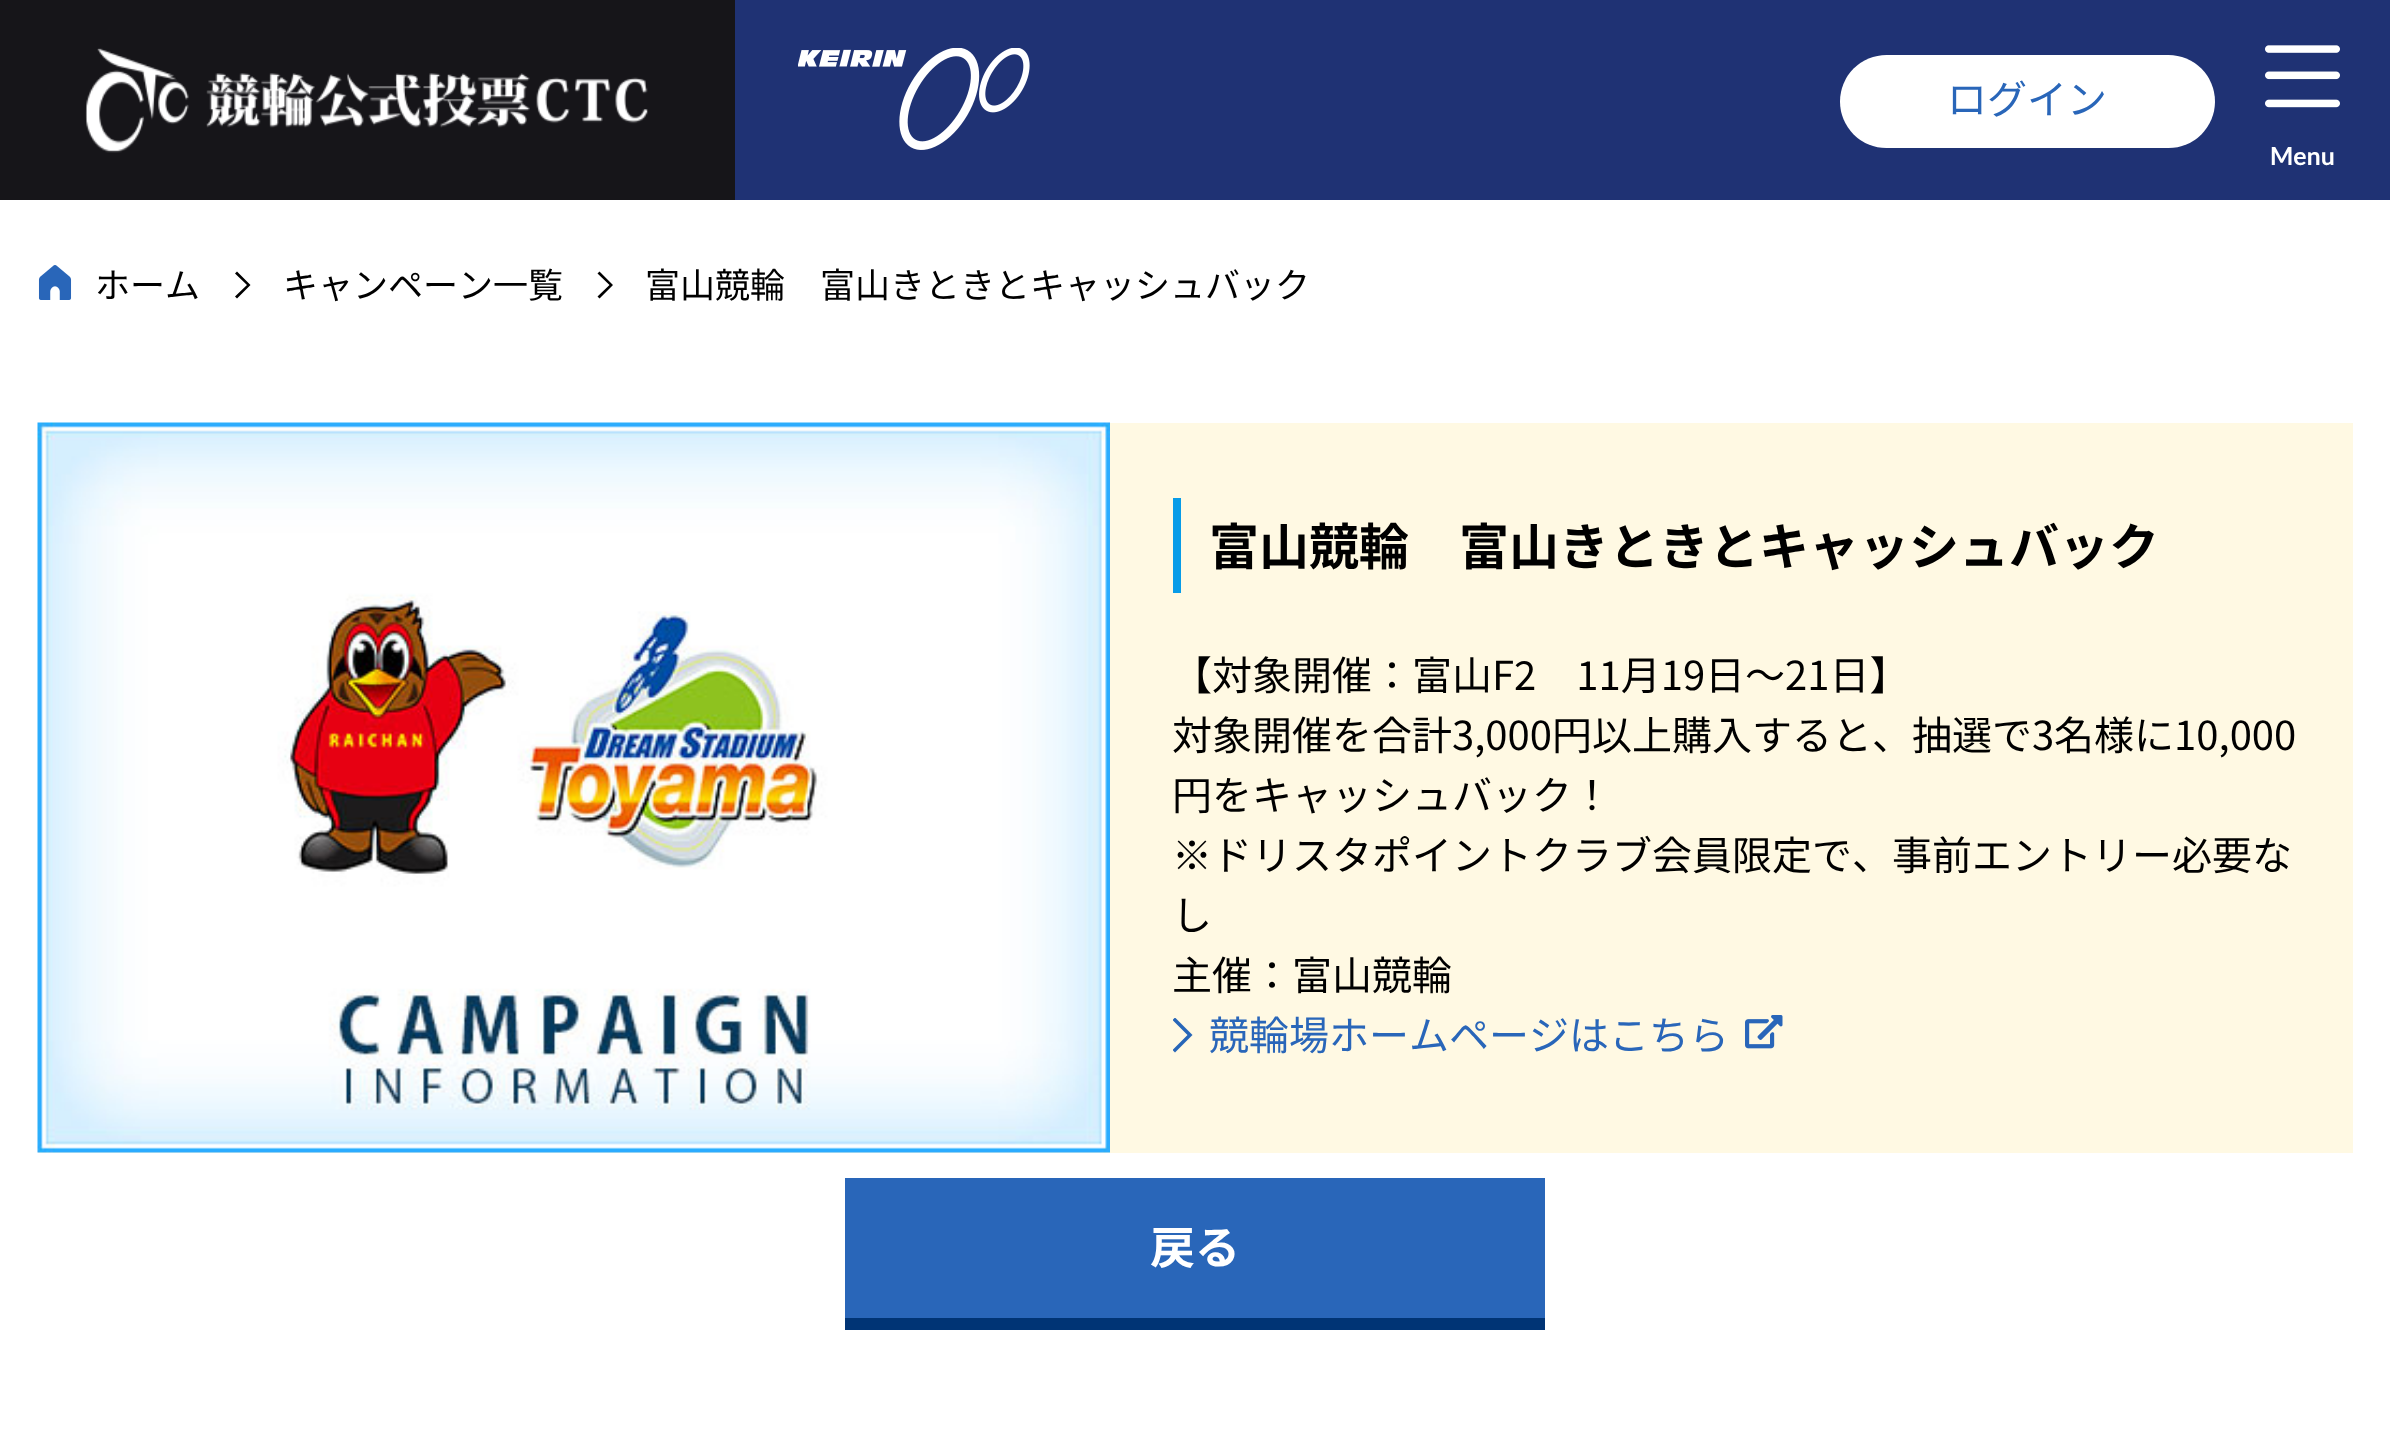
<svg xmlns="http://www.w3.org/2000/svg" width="2390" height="1431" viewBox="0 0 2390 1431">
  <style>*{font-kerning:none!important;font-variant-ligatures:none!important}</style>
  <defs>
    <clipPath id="clip1"><rect x="1173" y="1018" width="20" height="35"/></clipPath>
  </defs>
  <rect width="100%" height="100%" fill="#ffffff"/>
  <rect x="735" y="0" width="1655" height="200" fill="#1f3274"/>
  <rect x="0" y="0" width="735" height="200" fill="#161519"/>
  <image x="85" y="48" width="563" height="105" href="img1.png"/>
  <image x="798" y="48" width="232" height="102" href="img2.png"/>
  <rect x="1840" y="55" width="375" height="93" rx="46.5" fill="#ffffff"/>
  <text x="1947" y="114" font-family="Noto Sans JP" font-size="40" fill="#2966b9">ログイン</text>
  <image x="2265" y="45" width="75" height="63" href="img3.png"/>
  <text x="2270" y="165" font-family="Lato" font-size="25" font-weight="bold" fill="#ffffff">Menu</text>
  <image x="38" y="265" width="34" height="35" href="img4.png"/>
  <text x="95" y="298" font-family="Noto Sans JP" font-size="35" fill="#000000">ホーム</text>
  <path d="M237 271.5L235 273.5L247 285L235 296.5L237 298.5L250.5 285Z" fill="#000000"/>
  <text x="283" y="298" font-family="Noto Sans JP" font-size="35" fill="#000000">キャンペーン一覧</text>
  <path d="M599.5 271.5L597.5 273.5L609.5 285L597.5 296.5L599.5 298.5L613 285Z" fill="#000000"/>
  <text x="645" y="298" font-family="Noto Sans JP" font-size="35" fill="#000000">富山競輪　富山きときとキャッシュバック</text>
  <rect x="38" y="423" width="2315" height="730" fill="#fff9e3"/>
  <image x="37" y="422" width="1073" height="731" href="img5.png"/>
  <rect x="1173" y="498" width="8" height="95" fill="#089ce8"/>
  <text x="1209" y="565" font-family="Noto Sans JP" font-size="50" font-weight="bold" fill="#000000">富山競輪　富山きときとキャッシュバック</text>
  <text x="1172" y="690" font-family="Noto Sans JP" font-size="40" fill="#000000">【対象開催：富山F2　11月19日～21日】</text>
  <text x="1172" y="750" font-family="Noto Sans JP" font-size="40" fill="#000000">対象開催を合計3,000円以上購入すると、抽選で3名様に10,000</text>
  <text x="1172" y="810" font-family="Noto Sans JP" font-size="40" fill="#000000">円をキャッシュバック！</text>
  <text x="1172" y="870" font-family="Noto Sans JP" font-size="40" fill="#000000">※ドリスタポイントクラブ会員限定で、事前エントリー必要な</text>
  <text x="1172" y="930" font-family="Noto Sans JP" font-size="40" fill="#000000">し</text>
  <text x="1172" y="990" font-family="Noto Sans JP" font-size="40" fill="#000000">主催：富山競輪</text>
  <g clip-path="url(#clip1)">
    <path d="M1175 1017.5L1172.5 1020L1187.5 1035L1172.5 1050L1175 1052.5L1192.5 1035Z" fill="#2766b8"/>
  </g>
  <text x="1209" y="1050" font-family="Noto Sans JP" font-size="40" fill="#2966b9">競輪場ホームページはこちら</text>
  <image x="1745" y="1015" width="38" height="34" href="img6.png"/>
  <rect x="845" y="1178" width="700" height="140" fill="#2966b9"/>
  <rect x="845" y="1318" width="700" height="12" fill="#003475"/>
  <text x="1150" y="1264" font-family="Noto Sans JP" font-size="45" font-weight="bold" fill="#ffffff">戻る</text>
</svg>
